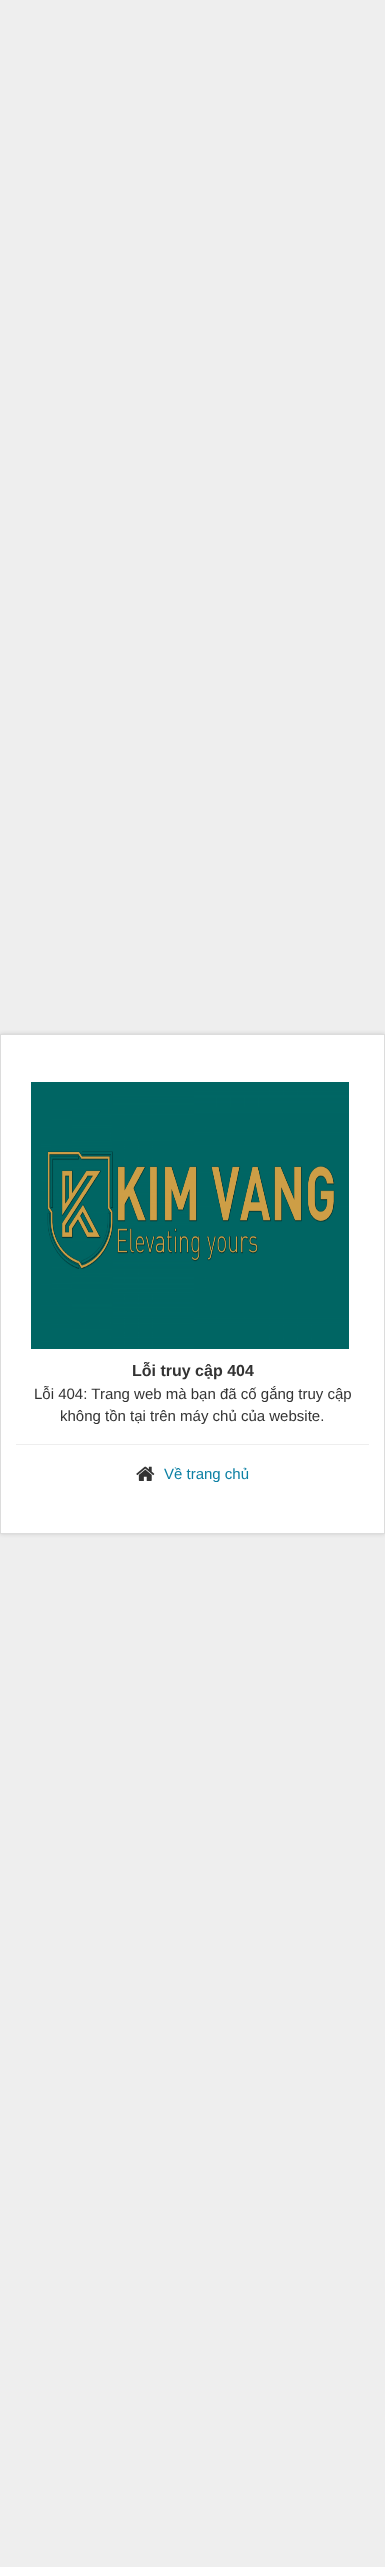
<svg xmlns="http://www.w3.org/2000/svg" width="385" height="2567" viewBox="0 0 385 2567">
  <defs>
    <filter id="blur1" x="-50%" y="-200%" width="200%" height="500%"><feGaussianBlur stdDeviation="2"/></filter>
  </defs>
  <rect width="100%" height="100%" fill="#eeeeee"/>
  <rect x="0" y="1034" width="385" height="500" fill="#000000" fill-opacity="0.15" filter="url(#blur1)"/>
  <rect x="0.5" y="1034.5" width="384" height="499" fill="#ffffff" stroke="#dcdcdc"/>
  <image x="31" y="1082" width="318" height="267" href="img1.png"/>
  <text x="132" y="1376" font-family="Liberation Sans" font-size="16" font-weight="bold" fill="#333333">Lỗi truy cập 404</text>
  <text x="34" y="1399" font-family="Liberation Sans" font-size="15" fill="#333333">Lỗi 404: Trang web mà bạn đã cố gắng truy cập</text>
  <text x="60" y="1421" font-family="Liberation Sans" font-size="15" fill="#333333">không tồn tại trên máy chủ của website.</text>
  <rect x="16" y="1444" width="353" height="1" fill="#eeeeee"/>
  <image x="136" y="1466" width="19" height="15" href="img2.png"/>
  <text x="164" y="1479" font-family="Liberation Sans" font-size="15" fill="#0d80a4">Về trang chủ</text>
</svg>
